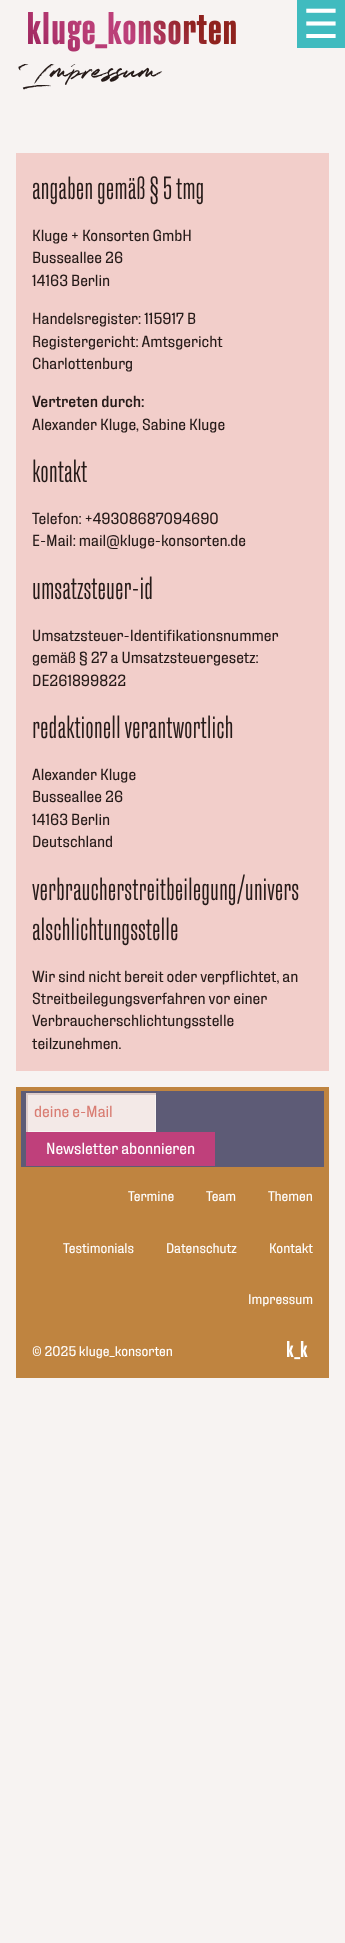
<svg xmlns="http://www.w3.org/2000/svg" width="345" height="1943" viewBox="0 0 345 1943">
  <defs>
    <clipPath id="clip1"><rect x="26" y="1093" width="130" height="39"/></clipPath>
  </defs>
  <rect width="100%" height="100%" fill="#f7f3f2"/>
  <text x="26" y="89" font-family="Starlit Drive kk" font-size="55" fill="#251a18">Impressum</text>
  <rect x="25" y="56" width="53" height="8" fill="#f7f3f2"/>
  <image x="28" y="12" width="208" height="40" href="img1.png"/>
  <rect x="297" y="0" width="48" height="48" fill="#40bbbf"/>
  <text x="303" y="38" font-family="DejaVu Sans" font-size="40" fill="#ffffff">☰</text>
  <rect x="16" y="153" width="313" height="918" fill="#f2ceca"/>
  <text x="32" y="199" font-family="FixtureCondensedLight" font-size="32" fill="#251a18">angaben gemäß § 5 tmg</text>
  <text x="32" y="241" font-family="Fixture" font-size="16" fill="#251a18">Kluge + Konsorten GmbH</text>
  <text x="32" y="263" font-family="Fixture" font-size="16" fill="#251a18">Busseallee 26</text>
  <text x="32" y="286" font-family="Fixture" font-size="16" fill="#251a18">14163 Berlin</text>
  <text x="32" y="324" font-family="Fixture" font-size="16" fill="#251a18">Handelsregister: 115917 B</text>
  <text x="32" y="347" font-family="Fixture" font-size="16" fill="#251a18">Registergericht: Amtsgericht</text>
  <text x="32" y="369" font-family="Fixture" font-size="16" fill="#251a18">Charlottenburg</text>
  <text x="32" y="407" font-family="'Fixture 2'" font-size="16" fill="#251a18">Vertreten durch:</text>
  <text x="32" y="430" font-family="Fixture" font-size="16" fill="#251a18">Alexander Kluge, Sabine Kluge</text>
  <text x="32" y="482" font-family="FixtureCondensedLight" font-size="32" fill="#251a18">kontakt</text>
  <text x="32" y="524" font-family="Fixture" font-size="16" fill="#251a18">Telefon: +49308687094690</text>
  <text x="32" y="546" font-family="Fixture" font-size="16" fill="#251a18">E-Mail: mail@kluge-konsorten.de</text>
  <text x="32" y="599" font-family="FixtureCondensedLight" font-size="32" fill="#251a18">umsatzsteuer-id</text>
  <text x="32" y="641" font-family="Fixture" font-size="16" fill="#251a18">Umsatzsteuer-Identifikationsnummer</text>
  <text x="32" y="663" font-family="Fixture" font-size="16" fill="#251a18">gemäß § 27 a Umsatzsteuergesetz:</text>
  <text x="32" y="686" font-family="Fixture" font-size="16" fill="#251a18">DE261899822</text>
  <text x="32" y="738" font-family="FixtureCondensedLight" font-size="32" fill="#251a18">redaktionell verantwortlich</text>
  <text x="32" y="780" font-family="Fixture" font-size="16" fill="#251a18">Alexander Kluge</text>
  <text x="32" y="802" font-family="Fixture" font-size="16" fill="#251a18">Busseallee 26</text>
  <text x="32" y="825" font-family="Fixture" font-size="16" fill="#251a18">14163 Berlin</text>
  <text x="32" y="847" font-family="Fixture" font-size="16" fill="#251a18">Deutschland</text>
  <text x="32" y="900" font-family="FixtureCondensedLight" font-size="32" fill="#251a18">verbraucherstreitbeilegung/univers</text>
  <text x="32" y="940" font-family="FixtureCondensedLight" font-size="32" fill="#251a18">alschlichtungsstelle</text>
  <text x="32" y="982" font-family="Fixture" font-size="16" fill="#251a18">Wir sind nicht bereit oder verpflichtet, an</text>
  <text x="32" y="1004" font-family="Fixture" font-size="16" fill="#251a18">Streitbeilegungsverfahren vor einer</text>
  <text x="32" y="1026" font-family="Fixture" font-size="16" fill="#251a18">Verbraucherschlichtungsstelle</text>
  <text x="32" y="1049" font-family="Fixture" font-size="16" fill="#251a18">teilzunehmen.</text>
  <rect x="16" y="1087" width="313" height="291" fill="#bf8440"/>
  <rect x="21" y="1091" width="303" height="76" fill="#5d5b76"/>
  <rect x="28" y="1095" width="127" height="36" fill="#f3e9e7"/>
  <g clip-path="url(#clip1)">
    <path d="M-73 994H255V1231H-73ZM25 1092H155V1131H25Z" fill="#f7f3f2" fill-rule="evenodd"/>
    <path d="M-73 994H255V1231H-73ZM28 1095H158V1134H28Z" fill="#deccc9" fill-rule="evenodd"/>
  </g>
  <text x="34" y="1117" font-family="Fixture" font-size="16" fill="#d97d73">deine e-Mail</text>
  <rect x="26" y="1132" width="189" height="34" fill="#bf407b"/>
  <text x="46" y="1154" font-family="Fixture" font-size="16" fill="#ffffff">Newsletter abonnieren</text>
  <text x="128" y="1201" font-family="Fixture" font-size="14" fill="#ffffff">Termine</text>
  <text x="206" y="1201" font-family="Fixture" font-size="14" fill="#ffffff">Team</text>
  <text x="268" y="1201" font-family="Fixture" font-size="14" fill="#ffffff">Themen</text>
  <text x="63" y="1253" font-family="Fixture" font-size="14" fill="#ffffff">Testimonials</text>
  <text x="166" y="1253" font-family="Fixture" font-size="14" fill="#ffffff">Datenschutz</text>
  <text x="269" y="1253" font-family="Fixture" font-size="14" fill="#ffffff">Kontakt</text>
  <text x="248" y="1304" font-family="Fixture" font-size="14" fill="#ffffff">Impressum</text>
  <text x="32" y="1356" font-family="Fixture" font-size="14" fill="#ffffff">© 2025 kluge_konsorten</text>
  <image x="287" y="1341" width="21" height="19" href="img2.png"/>
</svg>
